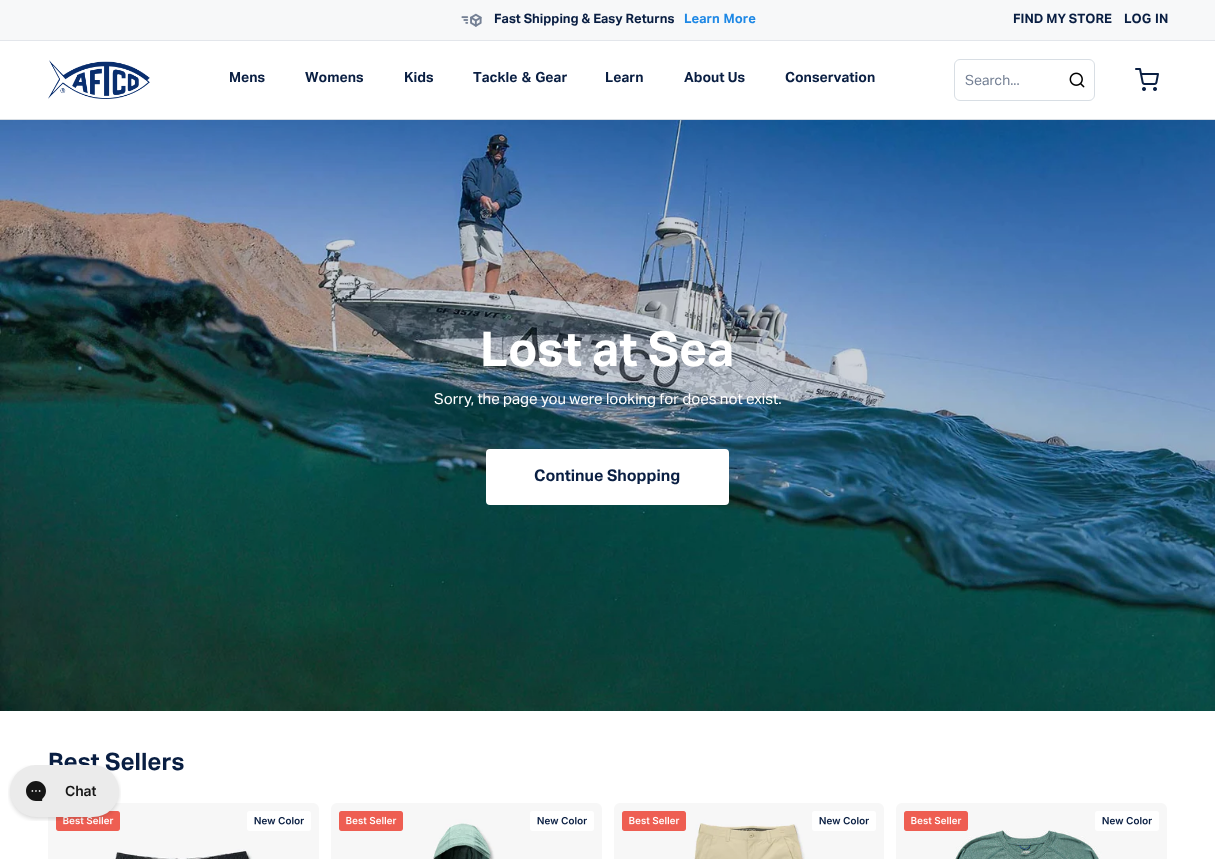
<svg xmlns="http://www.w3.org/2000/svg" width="1215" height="859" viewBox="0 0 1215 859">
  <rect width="100%" height="100%" fill="#ffffff"/>
  <rect x="0" y="0" width="1215" height="40" fill="#f7f8f9"/>
  <rect x="0" y="40" width="1215" height="1" fill="#e3e6eb"/>
  <image x="461" y="13" width="21" height="14" href="img1.png"/>
  <text x="494" y="23" font-family="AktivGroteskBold" font-size="13" font-weight="bold" fill="#091e42">Fast Shipping &amp; Easy Returns</text>
  <text x="684" y="23" word-spacing="1" font-family="AktivGroteskBold" font-size="13" font-weight="bold" fill="#1e88e5">Learn More</text>
  <text x="1013" y="23" font-family="AktivGroteskBold" font-size="13" font-weight="bold" fill="#091e42">FIND MY STORE</text>
  <text x="1124" y="23" word-spacing="1" font-family="AktivGroteskBold" font-size="13" font-weight="bold" fill="#091e42">LOG IN</text>
  <rect x="0" y="119" width="1215" height="1" fill="#d8dee4"/>
  <image x="48" y="60" width="102" height="39" href="img2.png"/>
  <text x="229" y="82" font-family="AktivGroteskBold" font-size="14" font-weight="bold" fill="#091e42">Mens</text>
  <text x="305" y="82" font-family="AktivGroteskBold" font-size="14" font-weight="bold" fill="#091e42">Womens</text>
  <text x="404" y="82" font-family="AktivGroteskBold" font-size="14" font-weight="bold" fill="#091e42">Kids</text>
  <text x="473" y="82" word-spacing="1" font-family="AktivGroteskBold" font-size="14" font-weight="bold" fill="#091e42">Tackle &amp; Gear</text>
  <text x="605" y="82" font-family="AktivGroteskBold" font-size="14" font-weight="bold" fill="#091e42">Learn</text>
  <text x="684" y="82" font-family="AktivGroteskBold" font-size="14" font-weight="bold" fill="#091e42">About Us</text>
  <text x="785" y="82" font-family="AktivGroteskBold" font-size="14" font-weight="bold" fill="#091e42">Conservation</text>
  <rect x="954.5" y="59.5" width="140" height="41" rx="5.5" fill="none" stroke="#d8dee4"/>
  <text x="965" y="85" font-family="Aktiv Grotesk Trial" font-size="14" fill="#758195">Search...</text>
  <image x="1069" y="72" width="16" height="16" href="img3.png"/>
  <image x="1135" y="68" width="24" height="23" href="img4.png"/>
  <image x="0" y="120" width="1215" height="591" href="img5.png"/>
  <text x="480" y="366" font-family="AktivGroteskBold" font-size="48" font-weight="bold" fill="#ffffff">Lost at Sea</text>
  <text x="434" y="404" font-family="Aktiv Grotesk Trial" font-size="15" fill="#ffffff">Sorry, the page you were looking for does not exist.</text>
  <rect x="486" y="449" width="243" height="56" rx="4" fill="#ffffff"/>
  <text x="534" y="481" font-family="AktivGroteskBold" font-size="16" font-weight="bold" fill="#091e42">Continue Shopping</text>
  <text x="48" y="770" font-family="AktivGroteskBold" font-size="24" font-weight="bold" fill="#091e42">Best Sellers</text>
  <image x="48" y="803" width="271" height="56" href="img6.png"/>
  <image x="56" y="811" width="64" height="20" href="img7.png"/>
  <image x="247" y="811" width="64" height="20" href="img8.png"/>
  <image x="331" y="803" width="271" height="56" href="img9.png"/>
  <image x="339" y="811" width="64" height="20" href="img7.png"/>
  <image x="530" y="811" width="64" height="20" href="img8.png"/>
  <image x="614" y="803" width="270" height="56" href="img10.png"/>
  <image x="622" y="811" width="64" height="20" href="img7.png"/>
  <image x="812" y="811" width="64" height="20" href="img8.png"/>
  <image x="896" y="803" width="271" height="56" href="img11.png"/>
  <image x="904" y="811" width="64" height="20" href="img7.png"/>
  <image x="1095" y="811" width="64" height="20" href="img8.png"/>
  <image x="8" y="765" width="113" height="56" href="img12.png"/>
</svg>
